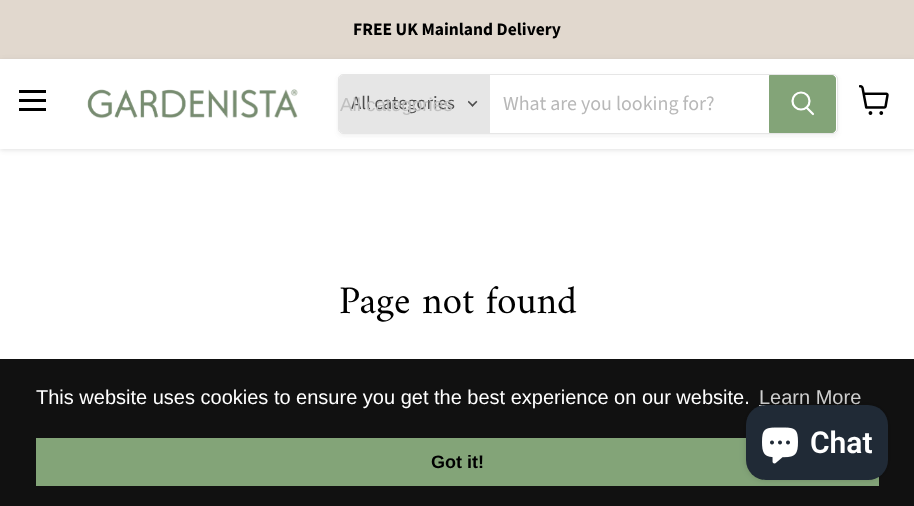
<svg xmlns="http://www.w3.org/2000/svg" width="914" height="506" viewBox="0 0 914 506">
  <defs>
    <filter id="blur1" x="-50%" y="-200%" width="200%" height="500%"><feGaussianBlur stdDeviation="2.5"/></filter>
    <clipPath id="clip1"><path d="M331 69H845V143H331ZM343 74H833C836 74 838 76 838 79V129C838 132 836 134 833 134H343C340 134 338 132 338 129V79C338 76 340 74 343 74Z" clip-rule="evenodd"/></clipPath>
    <filter id="blur2" x="-50%" y="-200%" width="200%" height="500%"><feGaussianBlur stdDeviation="2"/></filter>
    <filter id="blur3" x="-50%" y="-200%" width="200%" height="500%"><feGaussianBlur stdDeviation="3"/></filter>
  </defs>
  <rect width="100%" height="100%" fill="#ffffff"/>
  <rect x="0" y="0" width="914" height="59" fill="#e1d8ce"/>
  <text x="353" y="35" font-family="Source Sans Pro" font-size="17.5" font-weight="bold" fill="#000000">FREE UK Mainland Delivery</text>
  <rect x="0" y="60" width="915" height="90" fill="#808080" fill-opacity="0.25" filter="url(#blur1)"/>
  <rect x="0" y="59" width="914" height="90" fill="#ffffff"/>
  <rect x="19" y="90" width="27" height="3" fill="#000000"/>
  <rect x="19" y="99" width="27" height="3" fill="#000000"/>
  <rect x="19" y="108" width="27" height="3" fill="#000000"/>
  <image x="87" y="89" width="211" height="30" href="img1.png"/>
  <g clip-path="url(#clip1)">
    <rect x="338" y="76" width="500" height="60" rx="5" fill="#808080" fill-opacity="0.11" filter="url(#blur2)"/>
  </g>
  <rect x="338.5" y="74.5" width="499" height="59" rx="4.5" fill="none" stroke="#808080" stroke-opacity="0.2"/>
  <path d="M343 75H490V133H343C341 133 339 131 339 129V79C339 77 341 75 343 75Z" fill="#e6e6e6"/>
  <text x="351" y="109" font-family="Source Sans Pro" font-size="18.75" fill="#4d4d4d">All categories</text>
  <text x="340" y="111" font-family="Liberation Sans" font-size="18.75" fill="#c0c0c0">All categories</text>
  <image x="468" y="100" width="10" height="7" href="img2.png"/>
  <text x="503" y="110" font-family="Source Sans Pro" font-size="20" fill="#b8b8b8">What are you looking for?</text>
  <path d="M769.5 75.5H832C834 75.5 835.5 77 835.5 79V129C835.5 131 834 132.5 832 132.5H769.5Z" fill="#83a478" stroke="#83a478"/>
  <path d="M813 114L807 108" fill="none" stroke="#ffffff" stroke-width="2.2" stroke-linecap="round"/>
  <circle cx="801" cy="101" r="8.5" fill="none" stroke="#ffffff" stroke-width="2.2"/>
  <image x="859" y="85" width="30" height="30" href="img3.png"/>
  <text x="339" y="313" font-family="Amiri" font-size="39.5" fill="#000000">Page not found</text>
  <rect x="0" y="359" width="914" height="147" fill="#111111"/>
  <text x="36" y="404" font-family="Liberation Sans" font-size="20" fill="#ffffff">This website uses cookies to ensure you get the best experience on our website.</text>
  <text x="759" y="404" font-family="Liberation Sans" font-size="20" fill="#cfcfcf">Learn More</text>
  <rect x="759" y="405" width="7" height="1" fill="#cfcfcf"/>
  <rect x="36" y="438" width="843" height="48" fill="#83a478"/>
  <text x="431" y="468" font-family="Liberation Sans" font-size="18" font-weight="bold" fill="#000000">Got it!</text>
  <rect x="746" y="405" width="142" height="75" rx="20" fill="#000000" fill-opacity="0.15" filter="url(#blur3)"/>
  <rect x="746" y="405" width="142" height="75" rx="20" fill="#202a36"/>
  <image x="762" y="427" width="36" height="37" href="img4.png"/>
  <text x="810" y="453" font-family="Roboto" font-size="30" font-weight="600" fill="#ffffff">Chat</text>
</svg>
